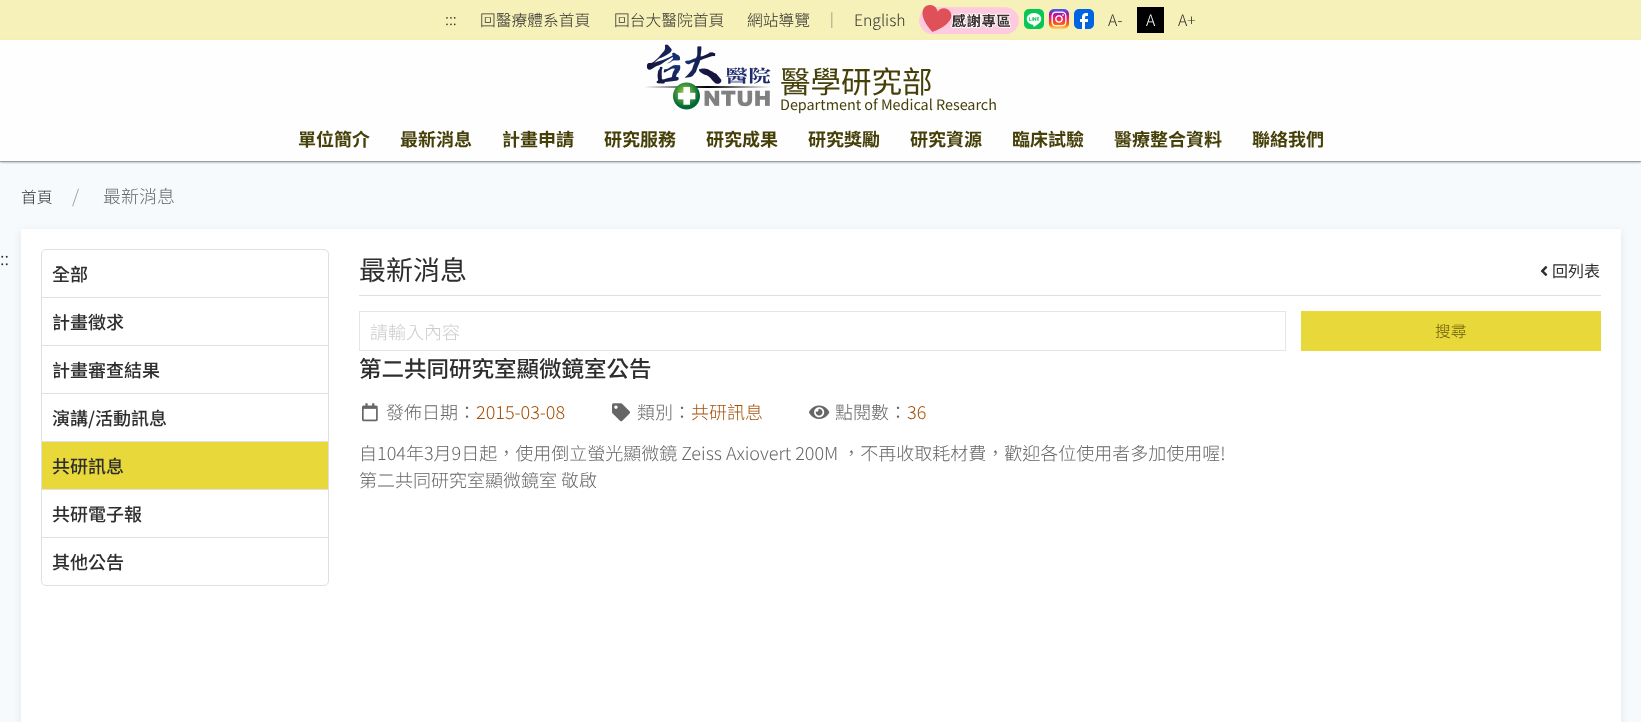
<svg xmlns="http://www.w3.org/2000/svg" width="1641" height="722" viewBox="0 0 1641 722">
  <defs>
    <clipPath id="clip1"><rect x="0" y="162" width="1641" height="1"/></clipPath>
    <filter id="blur1" x="-50%" y="-200%" width="200%" height="500%"><feGaussianBlur stdDeviation="1"/></filter>
    <clipPath id="clip2"><rect x="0" y="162" width="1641" height="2"/></clipPath>
    <filter id="blur2" x="-50%" y="-200%" width="200%" height="500%"><feGaussianBlur stdDeviation="1.5"/></filter>
    <filter id="blur3" x="-50%" y="-200%" width="200%" height="500%"><feGaussianBlur stdDeviation="4"/></filter>
  </defs>
  <rect width="100%" height="100%" fill="#f7fafc"/>
  <g clip-path="url(#clip1)">
    <rect x="0" y="1" width="1641" height="162" fill="#000000" fill-opacity="0.06" filter="url(#blur1)"/>
  </g>
  <g clip-path="url(#clip2)">
    <rect x="0" y="1" width="1641" height="162" fill="#000000" fill-opacity="0.1" filter="url(#blur2)"/>
  </g>
  <rect x="0" y="41" width="1641" height="121" fill="#000000" fill-opacity="0.06" filter="url(#blur1)"/>
  <rect x="0" y="41" width="1641" height="121" fill="#000000" fill-opacity="0.1" filter="url(#blur2)"/>
  <rect x="0" y="0" width="1641" height="40" fill="#f6efac" fill-opacity="0.85"/>
  <text x="445" y="25" font-family="Noto Sans TC" font-size="15.75" font-weight="300" fill="#2e2e2e">:::</text>
  <text x="480" y="26" font-family="Noto Sans TC" font-size="15.75" font-weight="300" fill="#2e2e2e">回醫療體系首頁</text>
  <text x="614" y="26" font-family="Noto Sans TC" font-size="15.75" font-weight="300" fill="#2e2e2e">回台大醫院首頁</text>
  <text x="747" y="26" font-family="Noto Sans TC" font-size="15.75" font-weight="300" fill="#2e2e2e">網站導覽</text>
  <text x="824" y="26" font-family="Noto Sans TC" font-size="15.75" font-weight="300" fill="#757575">｜</text>
  <text x="854" y="26" font-family="Noto Sans TC" font-size="15.75" font-weight="300" fill="#2e2e2e">English</text>
  <image x="919" y="5" width="100" height="29" href="img1.png"/>
  <image x="1024" y="9" width="20" height="20" href="img2.png"/>
  <image x="1049" y="9" width="20" height="20" href="img3.png"/>
  <image x="1074" y="9" width="20" height="20" href="img4.png"/>
  <text x="1108" y="26" font-family="Noto Sans TC" font-size="15.75" font-weight="300" fill="#2e2e2e">A-</text>
  <rect x="1137" y="7" width="27" height="26" fill="#000000"/>
  <text x="1146" y="26" font-family="Noto Sans TC" font-size="15.75" font-weight="300" fill="#ffffff">A</text>
  <text x="1178" y="26" font-family="Noto Sans TC" font-size="15.75" font-weight="300" fill="#2e2e2e">A+</text>
  <rect x="0" y="40" width="1641" height="121" fill="#fefeff"/>
  <image x="645" y="44" width="126" height="66" href="img5.png"/>
  <text x="780" y="93" font-family="Noto Sans TC" font-size="30.5" fill="#453f08">醫學研究部</text>
  <text x="780" y="110" font-family="Noto Sans TC" font-size="14.4" fill="#453f08">Department of Medical Research</text>
  <text x="298" y="146" font-family="Noto Sans TC" font-size="18" font-weight="bold" fill="#453f08">單位簡介</text>
  <text x="400" y="146" font-family="Noto Sans TC" font-size="18" font-weight="bold" fill="#453f08">最新消息</text>
  <text x="502" y="146" font-family="Noto Sans TC" font-size="18" font-weight="bold" fill="#453f08">計畫申請</text>
  <text x="604" y="146" font-family="Noto Sans TC" font-size="18" font-weight="bold" fill="#453f08">研究服務</text>
  <text x="706" y="146" font-family="Noto Sans TC" font-size="18" font-weight="bold" fill="#453f08">研究成果</text>
  <text x="808" y="146" font-family="Noto Sans TC" font-size="18" font-weight="bold" fill="#453f08">研究獎勵</text>
  <text x="910" y="146" font-family="Noto Sans TC" font-size="18" font-weight="bold" fill="#453f08">研究資源</text>
  <text x="1012" y="146" font-family="Noto Sans TC" font-size="18" font-weight="bold" fill="#453f08">臨床試驗</text>
  <text x="1114" y="146" font-family="Noto Sans TC" font-size="18" font-weight="bold" fill="#453f08">醫療整合資料</text>
  <text x="1252" y="146" font-family="Noto Sans TC" font-size="18" font-weight="bold" fill="#453f08">聯絡我們</text>
  <rect x="0" y="161" width="1641" height="1" fill="#000000" fill-opacity="0.3"/>
  <text x="21" y="203" font-family="Noto Sans TC" font-size="15.75" font-weight="300" fill="#2e2e2e">首頁</text>
  <text x="72" y="203" font-family="Noto Sans TC" font-size="18" font-weight="300" fill="#999999">/</text>
  <text x="103" y="203" font-family="Noto Sans TC" font-size="18" font-weight="300" fill="#666666">最新消息</text>
  <text x="0" y="265" font-family="Noto Sans TC" font-size="18" font-weight="300" fill="#2e2e2e">::</text>
  <rect x="21" y="231" width="1600" height="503" fill="#000000" fill-opacity="0.08" filter="url(#blur3)"/>
  <rect x="21" y="229" width="1600" height="493" fill="#ffffff"/>
  <path d="M46 249.5H324C326.5 249.5 328.5 251.5 328.5 254V297.5H41.5V254C41.5 251.5 43.5 249.5 46 249.5Z" fill="none" stroke="#e0e0e0"/>
  <text x="52" y="281" font-family="Noto Sans TC" font-size="18" font-weight="500" fill="#2e2e2e">全部</text>
  <rect x="41.5" y="297.5" width="287" height="48" fill="none" stroke="#e0e0e0"/>
  <text x="52" y="329" font-family="Noto Sans TC" font-size="18" font-weight="500" fill="#2e2e2e">計畫徵求</text>
  <rect x="41.5" y="345.5" width="287" height="48" fill="none" stroke="#e0e0e0"/>
  <text x="52" y="377" font-family="Noto Sans TC" font-size="18" font-weight="500" fill="#2e2e2e">計畫審查結果</text>
  <rect x="41.5" y="393.5" width="287" height="48" fill="none" stroke="#e0e0e0"/>
  <text x="52" y="425" font-family="Noto Sans TC" font-size="18" font-weight="500" fill="#2e2e2e">演講/活動訊息</text>
  <rect x="41.5" y="441.5" width="287" height="48" fill="none" stroke="#e0e0e0"/>
  <rect x="42" y="442" width="286" height="47" fill="#e9d839"/>
  <text x="52" y="473" font-family="Noto Sans TC" font-size="18" font-weight="500" fill="#2e2e2e">共研訊息</text>
  <rect x="41.5" y="489.5" width="287" height="48" fill="none" stroke="#e0e0e0"/>
  <text x="52" y="521" font-family="Noto Sans TC" font-size="18" font-weight="500" fill="#2e2e2e">共研電子報</text>
  <path d="M41.5 537.5H328.5V581C328.5 583.5 326.5 585.5 324 585.5H46C43.5 585.5 41.5 583.5 41.5 581Z" fill="#ffffff" stroke="#e0e0e0"/>
  <text x="52" y="569" font-family="Noto Sans TC" font-size="18" font-weight="500" fill="#2e2e2e">其他公告</text>
  <rect x="359" y="295" width="1242" height="1" fill="#e0e0e0"/>
  <text x="359" y="280" font-family="Noto Sans TC" font-size="27" fill="#2e2e2e">最新消息</text>
  <image x="1540" y="266" width="8" height="10" href="img6.png"/>
  <text x="1552" y="277" font-family="Noto Sans TC" font-size="16" fill="#2e2e2e">回列表</text>
  <rect x="359.5" y="311.5" width="926" height="39" fill="none" stroke="#e5e5e5"/>
  <text x="370" y="339" font-family="Noto Sans TC" font-size="18" font-weight="300" fill="#cccccc">請輸入內容</text>
  <rect x="1301" y="311" width="300" height="40" fill="#e9d839"/>
  <text x="1435" y="337" font-family="Noto Sans TC" font-size="15.75" font-weight="300" fill="#655c0b">搜尋</text>
  <text x="359" y="377" font-family="Noto Sans TC" font-size="22.5" font-weight="500" fill="#2e2e2e">第二共同研究室顯微鏡室公告</text>
  <image x="362" y="403" width="16" height="19" href="img7.png"/>
  <text x="386" y="419" font-family="Noto Sans TC" font-size="18" font-weight="300" fill="#666666">發佈日期：</text>
  <text x="476" y="419" font-family="Noto Sans TC" font-size="18" font-weight="300" fill="#a45009">2015-03-08</text>
  <image x="612" y="403" width="18" height="19" href="img8.png"/>
  <text x="637" y="419" font-family="Noto Sans TC" font-size="18" font-weight="300" fill="#666666">類別：</text>
  <text x="691" y="419" font-family="Noto Sans TC" font-size="18" font-weight="300" fill="#a45009">共研訊息</text>
  <image x="809" y="405" width="21" height="14" href="img9.png"/>
  <text x="835" y="419" font-family="Noto Sans TC" font-size="18" font-weight="300" fill="#666666">點閱數：</text>
  <text x="907" y="419" font-family="Noto Sans TC" font-size="18" font-weight="300" fill="#a45009">36</text>
  <text x="359" y="460" font-family="Noto Sans TC" font-size="18" font-weight="300" fill="#666666">自104年3月9日起，使用倒立螢光顯微鏡 Zeiss Axiovert 200M ，不再收取耗材費，歡迎各位使用者多加使用喔!</text>
  <text x="359" y="487" font-family="Noto Sans TC" font-size="18" font-weight="300" fill="#666666">第二共同研究室顯微鏡室 敬啟</text>
</svg>
